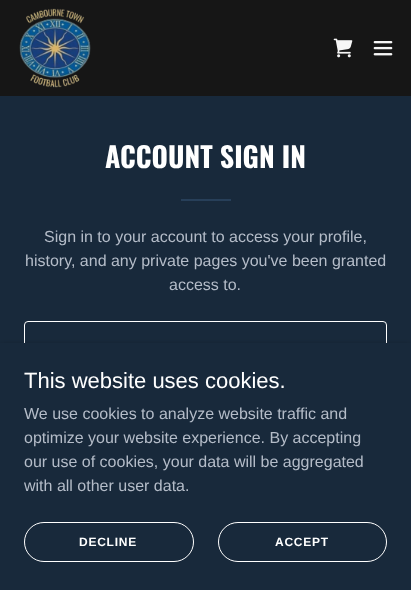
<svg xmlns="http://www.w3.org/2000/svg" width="411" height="590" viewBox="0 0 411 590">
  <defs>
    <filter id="blur1" x="-50%" y="-200%" width="200%" height="500%"><feGaussianBlur stdDeviation="3"/></filter>
  </defs>
  <rect width="100%" height="100%" fill="#18293b"/>
  <rect x="0" y="0" width="411" height="96" fill="#161616"/>
  <image x="19" y="8" width="72" height="80" href="img1.png"/>
  <image x="333" y="38" width="20" height="20" href="img2.png"/>
  <image x="373" y="41" width="20" height="15" href="img3.png"/>
  <text x="105" y="168" font-family="Oswald" font-size="28" font-weight="bold" fill="#ffffff">ACCOUNT SIGN IN</text>
  <rect x="181" y="199" width="50" height="2" fill="#273f59"/>
  <text x="44" y="242" font-family="Liberation Sans" font-size="16" fill="#b4bcc8">Sign in to your account to access your profile,</text>
  <text x="25" y="266" font-family="Liberation Sans" font-size="16" fill="#b4bcc8">history, and any private pages you've been granted</text>
  <text x="169" y="290" font-family="Liberation Sans" font-size="16" fill="#b4bcc8">access to.</text>
  <rect x="24.5" y="321.5" width="362" height="51" rx="3.5" fill="none" stroke="#ffffff"/>
  <rect x="0" y="345" width="411" height="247" fill="#000000" fill-opacity="0.3" filter="url(#blur1)"/>
  <rect x="0" y="343" width="411" height="247" fill="#18293b"/>
  <text x="24" y="388" font-family="Liberation Sans" font-size="22" fill="#ffffff">This website uses cookies.</text>
  <text x="24" y="419" font-family="Liberation Sans" font-size="16" fill="#b4bcc8">We use cookies to analyze website traffic and</text>
  <text x="24" y="443" font-family="Liberation Sans" font-size="16" fill="#b4bcc8">optimize your website experience. By accepting</text>
  <text x="24" y="467" font-family="Liberation Sans" font-size="16" fill="#b4bcc8">our use of cookies, your data will be aggregated</text>
  <text x="24" y="491" font-family="Liberation Sans" font-size="16" fill="#b4bcc8">with all other user data.</text>
  <rect x="24.5" y="522.5" width="169" height="39" rx="19.5" fill="none" stroke="#ffffff"/>
  <text x="79" y="546" font-family="Liberation Sans" font-size="12" font-weight="bold" letter-spacing="0.75" fill="#ffffff">DECLINE</text>
  <rect x="218.5" y="522.5" width="168" height="39" rx="19.5" fill="none" stroke="#ffffff"/>
  <text x="275" y="546" font-family="Liberation Sans" font-size="12" font-weight="bold" letter-spacing="0.75" fill="#ffffff">ACCEPT</text>
</svg>
